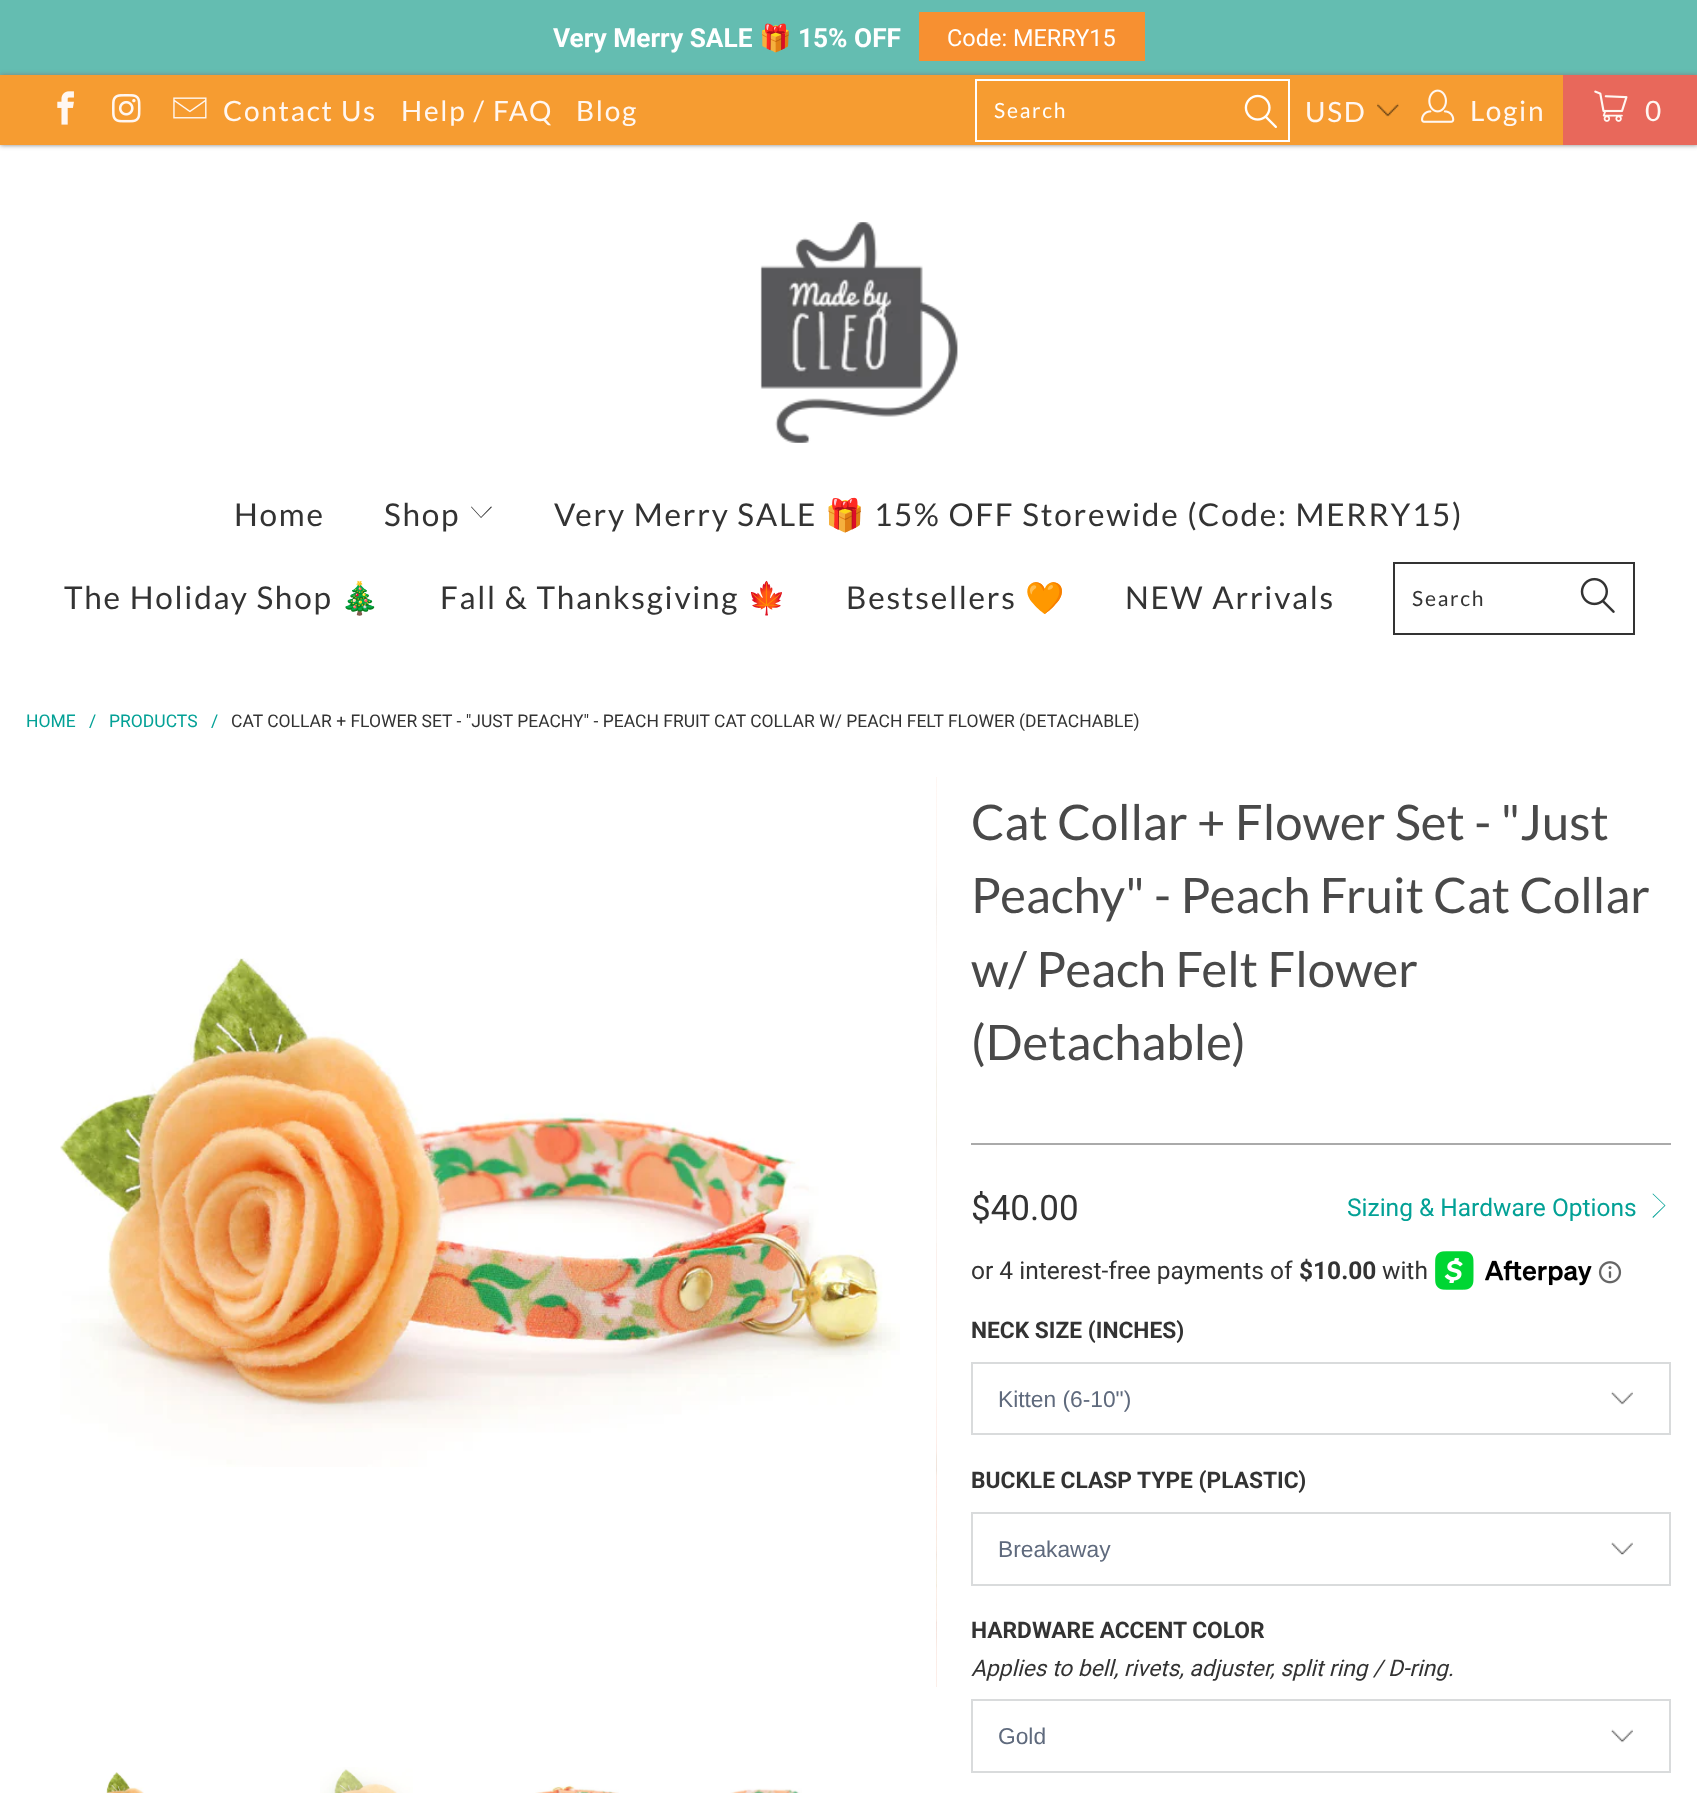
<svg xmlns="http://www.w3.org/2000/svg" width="1697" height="1793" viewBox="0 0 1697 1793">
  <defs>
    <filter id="blur1" x="-50%" y="-200%" width="200%" height="500%"><feGaussianBlur stdDeviation="2.5"/></filter>
  </defs>
  <rect width="100%" height="100%" fill="#ffffff"/>
  <rect x="0" y="0" width="1697" height="75" fill="#64bdb1"/>
  <text x="553" y="47" font-family="Roboto" font-size="26.25" font-weight="bold" fill="#ffffff">Very Merry SALE</text>
  <text x="759" y="47" font-family="Noto Color Emoji" font-size="26.25" fill="#ffffff">🎁</text>
  <text x="798" y="47" font-family="Roboto" font-size="26.25" font-weight="bold" fill="#ffffff">15% OFF</text>
  <rect x="919" y="12" width="226" height="49" fill="#f79031"/>
  <text x="947" y="46" font-family="Roboto" font-size="23.5" fill="#ffffff">Code: MERRY15</text>
  <rect x="0" y="75" width="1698" height="70" fill="#808080" filter="url(#blur1)"/>
  <rect x="0" y="75" width="1563" height="70" fill="#f69c31"/>
  <image x="57" y="91" width="17" height="34" href="img1.png"/>
  <image x="112" y="94" width="29" height="29" href="img2.png"/>
  <image x="173" y="97" width="34" height="22" href="img3.png"/>
  <text x="223" y="121" font-family="Lato" font-size="28" letter-spacing="1.75" fill="#fff7f2">Contact Us</text>
  <text x="401" y="121" font-family="Lato" font-size="28" letter-spacing="1.75" fill="#fff7f2">Help / FAQ</text>
  <text x="576" y="121" font-family="Lato" font-size="28" letter-spacing="1.75" fill="#fff7f2">Blog</text>
  <rect x="976" y="80" width="313" height="61" fill="none" stroke="#ffffff" stroke-width="2"/>
  <text x="994" y="118" font-family="Lato" font-size="21" letter-spacing="1.75" fill="#ffffff">Search</text>
  <image x="1244" y="94" width="33" height="35" href="img4.png"/>
  <image x="1377" y="103" width="22" height="14" href="img5.png"/>
  <text x="1305" y="122" font-family="Lato" font-size="28" letter-spacing="1.75" fill="#fff7f2">USD</text>
  <image x="1421" y="89" width="34" height="34" href="img6.png"/>
  <text x="1470" y="121" font-family="Lato" font-size="28" letter-spacing="1.75" fill="#fff7f2">Login</text>
  <rect x="1563" y="75" width="134" height="70" fill="#e8685b"/>
  <image x="1594" y="90" width="34" height="32" href="img7.png"/>
  <text x="1645" y="121" font-family="Lato" font-size="28" letter-spacing="1.75" fill="#fff7f2">0</text>
  <image x="760" y="222" width="198" height="221" href="img8.png"/>
  <text x="234" y="526" font-family="Lato" font-size="31.5" letter-spacing="1.75" fill="#333333">Home</text>
  <text x="384" y="526" font-family="Lato" font-size="31.5" letter-spacing="1.75" fill="#333333">Shop</text>
  <path d="M481 518L471 507L471.5 506.5L481 517L491 506.5L492 507Z" fill="#333333"/>
  <text x="554" y="526" font-family="Lato" font-size="31.5" letter-spacing="1.75" fill="#333333">Very Merry SALE</text>
  <text x="825" y="526" font-family="Noto Color Emoji" font-size="31.5" letter-spacing="1.75" fill="#333333">🎁</text>
  <text x="874" y="526" font-family="Lato" font-size="31.5" letter-spacing="1.75" fill="#333333">15% OFF Storewide (Code: MERRY15)</text>
  <text x="64" y="609" font-family="Lato" font-size="31.5" letter-spacing="1.75" fill="#333333">The Holiday Shop</text>
  <text x="340" y="609" font-family="Noto Color Emoji" font-size="31.5" letter-spacing="1.75" fill="#333333">🎄</text>
  <text x="440" y="609" font-family="Lato" font-size="31.5" letter-spacing="1.75" fill="#333333">Fall &amp; Thanksgiving</text>
  <text x="747" y="609" font-family="Noto Color Emoji" font-size="31.5" letter-spacing="1.75" fill="#333333">🍁</text>
  <text x="846" y="609" font-family="Lato" font-size="31.5" letter-spacing="1.75" fill="#333333">Bestsellers</text>
  <text x="1025" y="609" font-family="Noto Color Emoji" font-size="31.5" letter-spacing="1.75" fill="#333333">🧡</text>
  <text x="1125" y="609" font-family="Lato" font-size="31.5" letter-spacing="1.75" fill="#333333">NEW Arrivals</text>
  <rect x="1394" y="563" width="240" height="71" fill="none" stroke="#333333" stroke-width="2"/>
  <text x="1412" y="606" font-family="Lato" font-size="21" letter-spacing="1.75" fill="#333333">Search</text>
  <image x="1580" y="577" width="35" height="36" href="img9.png"/>
  <text x="26" y="727" font-family="Roboto" font-size="17.5" fill="#03a196">HOME</text>
  <text x="89" y="727" font-family="Roboto" font-size="17.5" fill="#03a196">/</text>
  <text x="109" y="727" font-family="Roboto" font-size="17.5" fill="#03a196">PRODUCTS</text>
  <text x="211" y="727" font-family="Roboto" font-size="17.5" fill="#03a196">/</text>
  <text x="231" y="727" font-family="Roboto" font-size="17.5" fill="#333333">CAT COLLAR + FLOWER SET - "JUST PEACHY" - PEACH FRUIT CAT COLLAR W/ PEACH FELT FLOWER (DETACHABLE)</text>
  <image x="936" y="777" width="1" height="910" href="img10.png"/>
  <image x="936" y="777" width="1" height="910" href="img11.png"/>
  <image x="60" y="958" width="840" height="509" href="img12.png"/>
  <image x="936" y="777" width="1" height="910" href="img13.png"/>
  <image x="106" y="1772" width="38" height="21" href="img14.png"/>
  <image x="320" y="1767" width="93" height="26" href="img15.png"/>
  <image x="535" y="1784" width="84" height="9" href="img16.png"/>
  <image x="730" y="1788" width="72" height="5" href="img17.png"/>
  <text x="971" y="840" font-family="Lato" font-size="49" fill="#494949">Cat Collar + Flower Set - "Just</text>
  <text x="971" y="913" font-family="Lato" font-size="49" fill="#494949">Peachy" - Peach Fruit Cat Collar</text>
  <text x="971" y="987" font-family="Lato" font-size="49" fill="#494949">w/ Peach Felt Flower</text>
  <text x="971" y="1060" font-family="Lato" font-size="49" fill="#494949">(Detachable)</text>
  <rect x="971" y="1143" width="700" height="2" fill="#aaaaaa"/>
  <text x="971" y="1220" font-family="Roboto" font-size="35" fill="#333333">$40.00</text>
  <text x="1347" y="1216" font-family="Roboto" font-size="24.5" fill="#03a196">Sizing &amp; Hardware Options</text>
  <path d="M1653 1218L1652.5 1217L1664.5 1205.5L1652.5 1194L1653 1193.5L1665.5 1205.5Z" fill="#03a196"/>
  <text x="971" y="1279" font-family="Roboto" font-size="24.5" fill="#333333">or 4 interest-free payments of</text>
  <text x="1299" y="1279" font-family="Roboto" font-size="24.5" font-weight="bold" fill="#333333">$10.00</text>
  <text x="1382" y="1279" font-family="Roboto" font-size="24.5" fill="#333333">with</text>
  <image x="1435" y="1251" width="157" height="39" href="img18.png"/>
  <image x="1598" y="1261" width="24" height="23" href="img19.png"/>
  <text x="971" y="1338" font-family="Roboto" font-size="22.75" font-weight="bold" fill="#333333">NECK SIZE (INCHES)</text>
  <image x="1611" y="1391" width="22" height="14" href="img20.png"/>
  <rect x="972" y="1363" width="698" height="71" fill="none" stroke="#d9dbdc" stroke-width="2"/>
  <text x="998" y="1407" font-family="Liberation Sans" font-size="22.75" fill="#5f6a7d">Kitten (6-10")</text>
  <text x="971" y="1488" font-family="Roboto" font-size="22.75" font-weight="bold" fill="#333333">BUCKLE CLASP TYPE (PLASTIC)</text>
  <image x="1611" y="1542" width="22" height="13" href="img21.png"/>
  <rect x="972" y="1513" width="698" height="72" fill="none" stroke="#d9dbdc" stroke-width="2"/>
  <text x="998" y="1557" font-family="Liberation Sans" font-size="22.75" fill="#5f6a7d">Breakaway</text>
  <text x="971" y="1638" font-family="Roboto" font-size="22.75" font-weight="bold" fill="#333333">HARDWARE ACCENT COLOR</text>
  <text x="971" y="1676" font-family="Roboto" font-size="22.75" font-style="italic" fill="#333333">Applies to bell, rivets, adjuster, split ring / D-ring.</text>
  <image x="1611" y="1729" width="22" height="14" href="img22.png"/>
  <rect x="972" y="1700" width="698" height="72" fill="none" stroke="#d9dbdc" stroke-width="2"/>
  <text x="998" y="1744" font-family="Liberation Sans" font-size="22.75" fill="#5f6a7d">Gold</text>
</svg>
